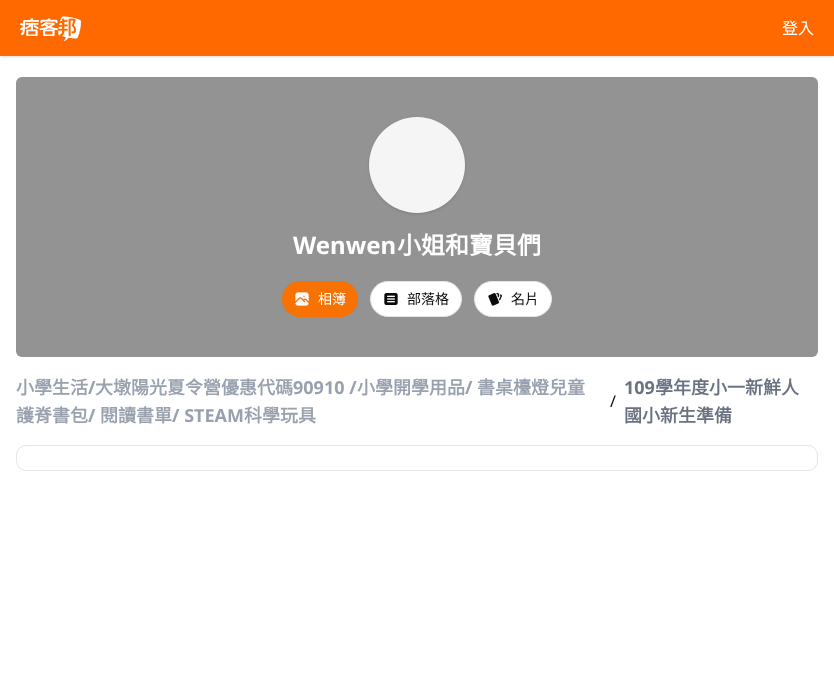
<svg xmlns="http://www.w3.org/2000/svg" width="834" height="695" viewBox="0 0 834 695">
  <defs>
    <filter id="blur1" x="-50%" y="-200%" width="200%" height="500%"><feGaussianBlur stdDeviation="1"/></filter>
    <filter id="blur2" x="-50%" y="-200%" width="200%" height="500%"><feGaussianBlur stdDeviation="1.5"/></filter>
  </defs>
  <rect width="100%" height="100%" fill="#ffffff"/>
  <rect x="1" y="2" width="832" height="54" fill="#000000" fill-opacity="0.1" filter="url(#blur1)"/>
  <rect x="0" y="1" width="834" height="56" fill="#000000" fill-opacity="0.1" filter="url(#blur2)"/>
  <rect x="0" y="0" width="834" height="56" fill="#ff6900"/>
  <image x="20" y="16" width="61" height="25" href="img1.png"/>
  <text x="782" y="34" font-family="Noto Sans CJK TC" font-size="16" fill="#ffffff">登入</text>
  <rect x="16" y="77" width="802" height="280" rx="6" fill="#939393"/>
  <rect x="370" y="119" width="94" height="94" rx="47" fill="#000000" fill-opacity="0.1" filter="url(#blur1)"/>
  <rect x="369" y="118" width="96" height="96" rx="48" fill="#000000" fill-opacity="0.1" filter="url(#blur2)"/>
  <circle cx="417" cy="165" r="48" fill="#f5f5f5"/>
  <text x="293" y="254" font-family="Noto Sans" font-size="24" font-weight="bold" fill="#ffffff">Wenwen</text>
  <text x="397" y="254" font-family="Noto Sans CJK TC" font-size="24" font-weight="bold" fill="#ffffff">小姐和寶貝們</text>
  <rect x="282" y="281" width="76" height="36" rx="18" fill="#f87103"/>
  <image x="295" y="292" width="14" height="14" href="img2.png"/>
  <text x="318" y="304" font-family="Noto Sans CJK TC" font-size="14" fill="#ffffff">相簿</text>
  <rect x="370.5" y="281.5" width="91" height="35" rx="17.5" fill="#ffffff" stroke="#e5e5e5"/>
  <image x="384" y="293" width="14" height="12" href="img3.png"/>
  <text x="407" y="304" font-family="Noto Sans CJK TC" font-size="14" fill="#0a0a0a">部落格</text>
  <rect x="474.5" y="281.5" width="77" height="35" rx="17.5" fill="#ffffff" stroke="#e5e5e5"/>
  <image x="488" y="293" width="14" height="13" href="img4.png"/>
  <text x="511" y="304" font-family="Noto Sans CJK TC" font-size="14" fill="#0a0a0a">名片</text>
  <text x="16" y="394" font-family="Noto Sans CJK TC" font-size="18" font-weight="bold" fill="#99a1af">小學生活</text>
  <text x="88" y="394" font-family="Noto Sans" font-size="18" font-weight="bold" fill="#99a1af">/</text>
  <text x="95" y="394" font-family="Noto Sans CJK TC" font-size="18" font-weight="bold" fill="#99a1af">大墩陽光夏令營優惠代碼</text>
  <text x="293" y="394" font-family="Noto Sans" font-size="18" font-weight="bold" fill="#99a1af">90910 /</text>
  <text x="357" y="394" font-family="Noto Sans CJK TC" font-size="18" font-weight="bold" fill="#99a1af">小學開學用品</text>
  <text x="465" y="394" font-family="Noto Sans" font-size="18" font-weight="bold" fill="#99a1af">/</text>
  <text x="477" y="394" font-family="Noto Sans CJK TC" font-size="18" font-weight="bold" fill="#99a1af">書桌檯燈兒童</text>
  <text x="16" y="422" font-family="Noto Sans CJK TC" font-size="18" font-weight="bold" fill="#99a1af">護脊書包</text>
  <text x="88" y="422" font-family="Noto Sans" font-size="18" font-weight="bold" fill="#99a1af">/</text>
  <text x="100" y="422" font-family="Noto Sans CJK TC" font-size="18" font-weight="bold" fill="#99a1af">閱讀書單</text>
  <text x="172" y="422" font-family="Noto Sans" font-size="18" font-weight="bold" fill="#99a1af">/ STEAM</text>
  <text x="244" y="422" font-family="Noto Sans CJK TC" font-size="18" font-weight="bold" fill="#99a1af">科學玩具</text>
  <text x="610" y="407" font-family="Noto Sans" font-size="16" fill="#0a0a0a">/</text>
  <text x="624" y="394" font-family="Noto Sans" font-size="18" font-weight="bold" fill="#6a7282">109</text>
  <text x="655" y="394" font-family="Noto Sans CJK TC" font-size="18" font-weight="bold" fill="#6a7282">學年度小一新鮮人</text>
  <text x="624" y="422" font-family="Noto Sans CJK TC" font-size="18" font-weight="bold" fill="#6a7282">國小新生準備</text>
  <rect x="16.5" y="445.5" width="801" height="25" rx="9.5" fill="none" stroke="#e5e5e5"/>
</svg>
